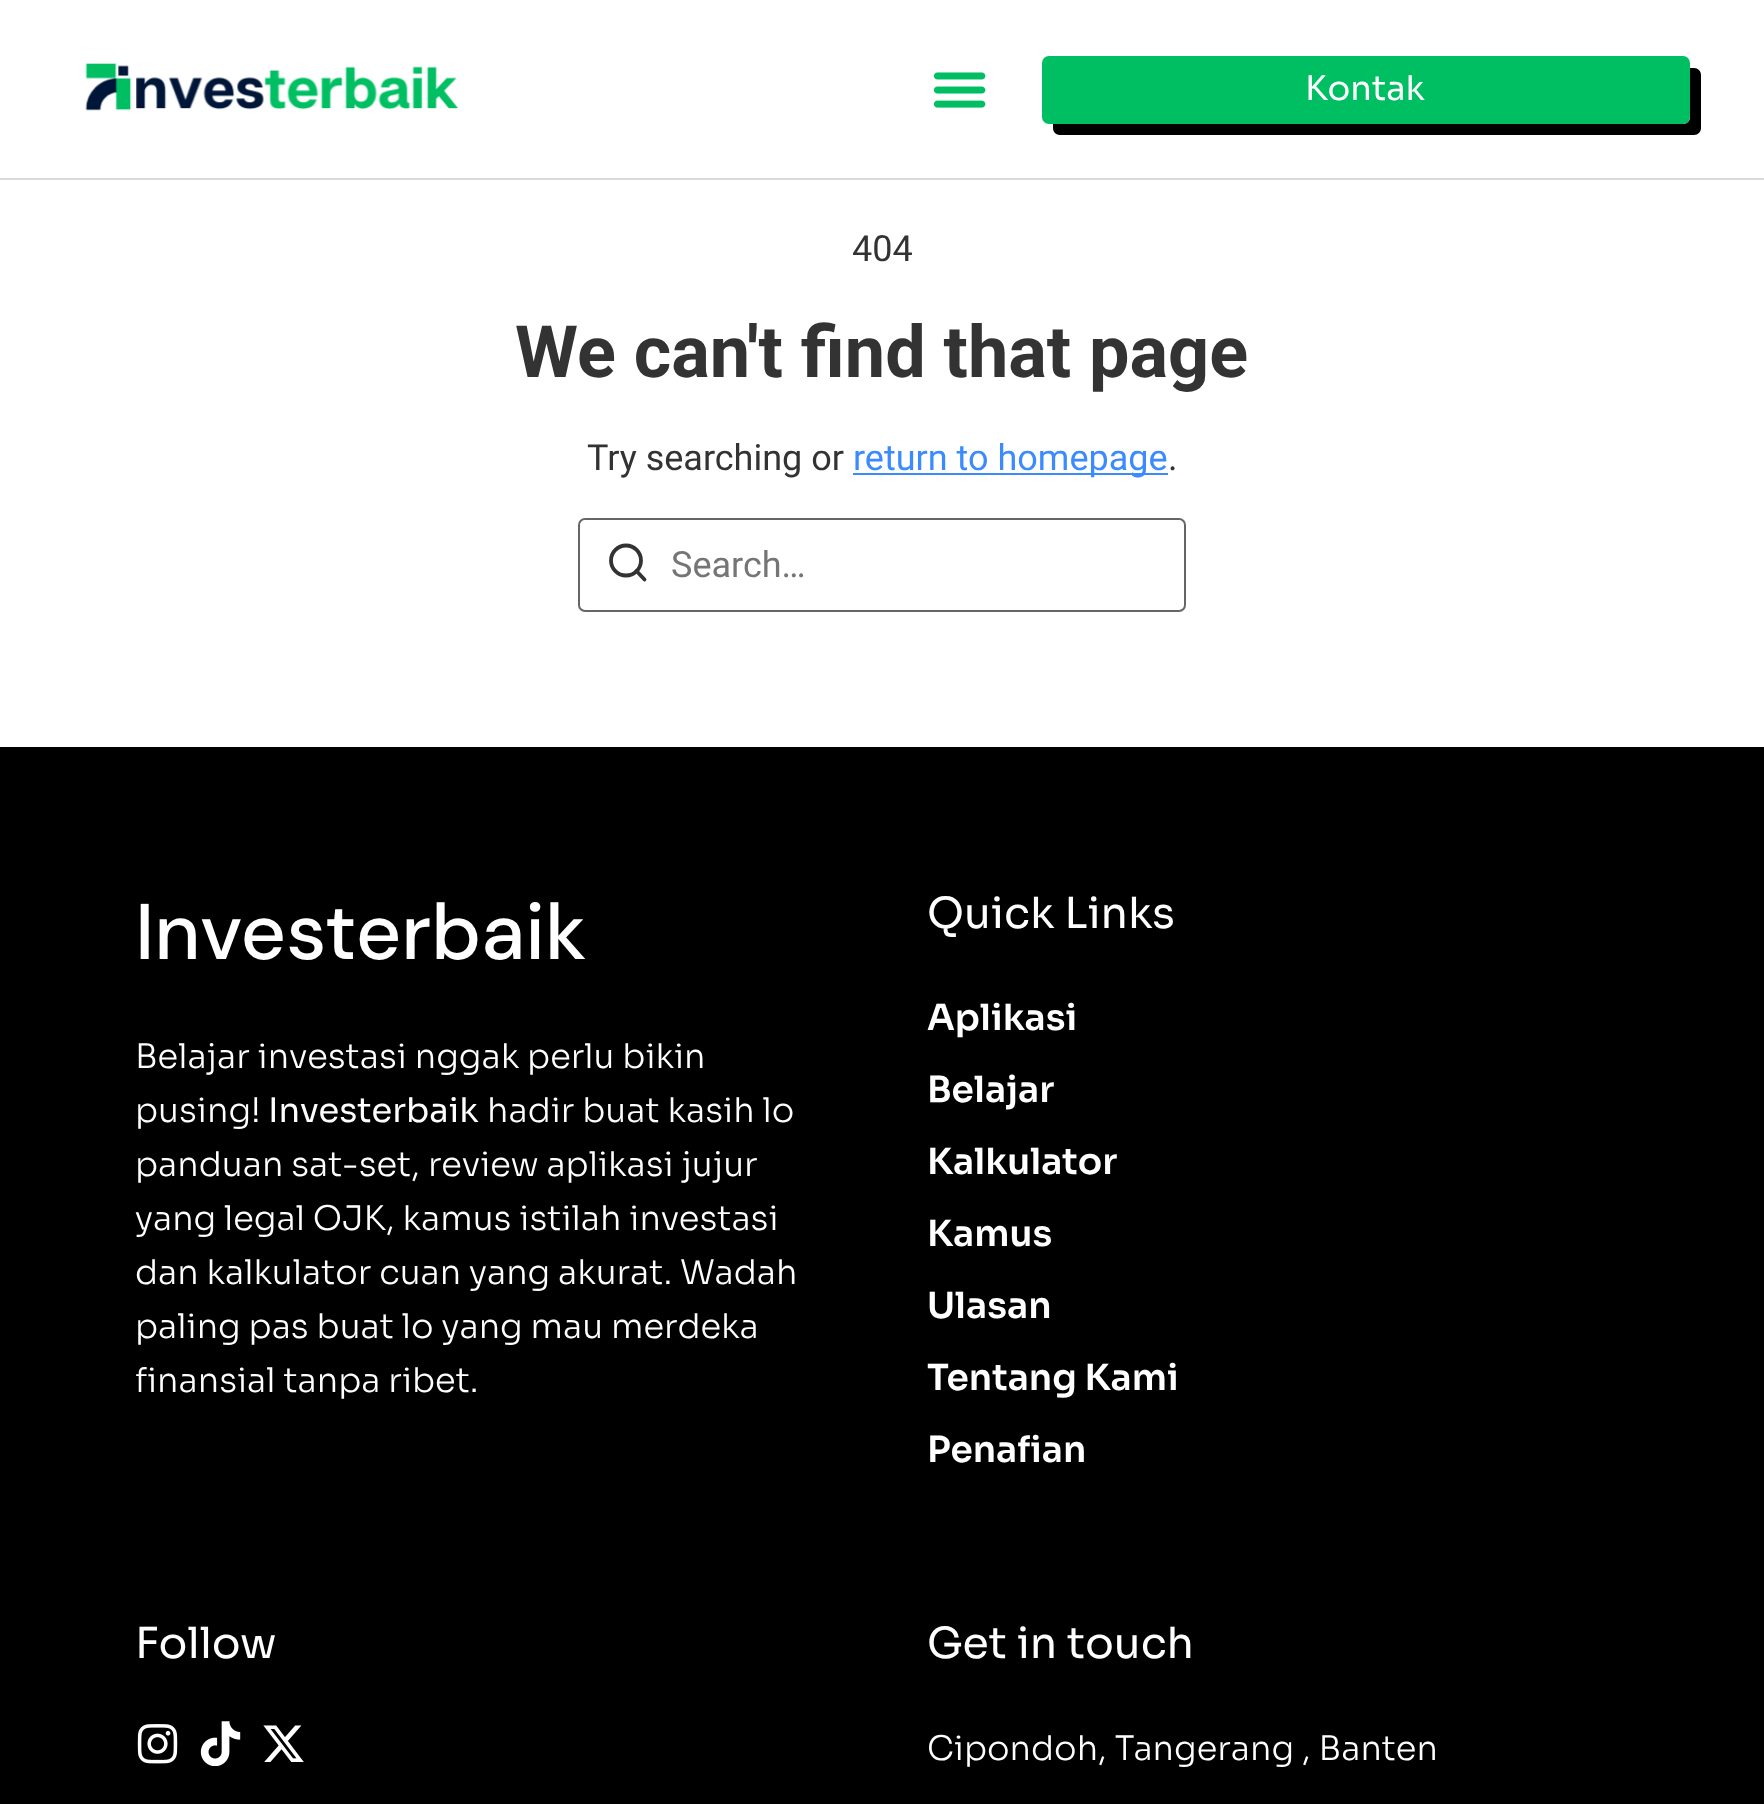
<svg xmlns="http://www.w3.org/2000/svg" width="1764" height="1804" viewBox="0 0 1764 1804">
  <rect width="100%" height="100%" fill="#ffffff"/>
  <rect x="0" y="178" width="1764" height="2" fill="#dadada"/>
  <image x="85" y="63" width="374" height="48" href="img1.png"/>
  <image x="933" y="72" width="53" height="36" href="img2.png"/>
  <path d="M1053 124V128C1053 132 1056 135 1060 135H1694C1698 135 1701 132 1701 128V75C1701 71 1698 68 1694 68H1690V117C1690 121 1687 124 1683 124Z" fill="#000000"/>
  <rect x="1042" y="56" width="648" height="68" rx="7" fill="#00bf63"/>
  <text x="1305" y="100" font-family="Sora" font-size="33.75" fill="#ffffff">Kontak</text>
  <text x="852" y="261" font-family="Roboto" font-size="36" fill="#333333">404</text>
  <text x="515" y="377" font-family="Roboto" font-size="72" font-weight="bold" fill="#333333">We can't find that page</text>
  <text x="587" y="470" font-family="Roboto" font-size="36" fill="#333333">Try searching or</text>
  <rect x="853" y="473" width="315" height="2" fill="#3b8bff"/>
  <text x="853" y="470" font-family="Roboto" font-size="36" fill="#3b8bff">return to homepage</text>
  <text x="1168" y="470" font-family="Roboto" font-size="36" fill="#333333">.</text>
  <rect x="579" y="519" width="606" height="92" rx="6" fill="none" stroke="#666666" stroke-width="2"/>
  <circle cx="626" cy="560.5" r="15" fill="none" stroke="#333333" stroke-width="3.8"/>
  <path d="M644.5 579.5L636.5 571" fill="none" stroke="#333333" stroke-width="3.8" stroke-linecap="round" stroke-linejoin="round"/>
  <text x="671" y="577" font-family="Roboto" font-size="36" fill="#757575">Search…</text>
  <rect x="0" y="747" width="1764" height="1057" fill="#000000"/>
  <text x="135" y="959" font-family="DM Sans" font-size="78.75" font-weight="500" fill="#ffffff">Investerbaik</text>
  <text x="135" y="1068" font-family="Sora" font-size="33.75" font-weight="300" fill="#ffffff">Belajar investasi nggak perlu bikin</text>
  <text x="135" y="1122" font-family="Sora" font-size="33.75" font-weight="300" fill="#ffffff">pusing!</text>
  <text x="268" y="1122" font-family="Sora" font-size="33.75" fill="#ffffff">Investerbaik</text>
  <text x="487" y="1122" font-family="Sora" font-size="33.75" font-weight="300" fill="#ffffff">hadir buat kasih lo</text>
  <text x="135" y="1176" font-family="Sora" font-size="33.75" font-weight="300" fill="#ffffff">panduan sat-set, review aplikasi jujur</text>
  <text x="135" y="1230" font-family="Sora" font-size="33.75" font-weight="300" fill="#ffffff">yang legal OJK, kamus istilah investasi</text>
  <text x="135" y="1284" font-family="Sora" font-size="33.75" font-weight="300" fill="#ffffff">dan kalkulator cuan yang akurat. Wadah</text>
  <text x="135" y="1338" font-family="Sora" font-size="33.75" font-weight="300" fill="#ffffff">paling pas buat lo yang mau merdeka</text>
  <text x="135" y="1392" font-family="Sora" font-size="33.75" font-weight="300" fill="#ffffff">finansial tanpa ribet.</text>
  <text x="927" y="928" font-family="Sora" font-size="42.75" fill="#ffffff">Quick Links</text>
  <text x="927" y="1030" font-family="Sora" font-size="36" font-weight="600" fill="#ffffff">Aplikasi</text>
  <text x="927" y="1102" font-family="Sora" font-size="36" font-weight="600" fill="#ffffff">Belajar</text>
  <text x="927" y="1174" font-family="Sora" font-size="36" font-weight="600" fill="#ffffff">Kalkulator</text>
  <text x="927" y="1246" font-family="Sora" font-size="36" font-weight="600" fill="#ffffff">Kamus</text>
  <text x="927" y="1318" font-family="Sora" font-size="36" font-weight="600" fill="#ffffff">Ulasan</text>
  <text x="927" y="1390" font-family="Sora" font-size="36" font-weight="600" fill="#ffffff">Tentang Kami</text>
  <text x="927" y="1462" font-family="Sora" font-size="36" font-weight="600" fill="#ffffff">Penafian</text>
  <text x="135" y="1658" font-family="Sora" font-size="42.75" fill="#ffffff">Follow</text>
  <image x="137" y="1724" width="41" height="40" href="img3.png"/>
  <image x="200" y="1721" width="41" height="45" href="img4.png"/>
  <image x="263" y="1725" width="41" height="37" href="img5.png"/>
  <text x="927" y="1658" font-family="Sora" font-size="42.75" fill="#ffffff">Get in touch</text>
  <text x="927" y="1760" font-family="Sora" font-size="33.75" font-weight="300" fill="#ffffff">Cipondoh, Tangerang , Banten</text>
</svg>
